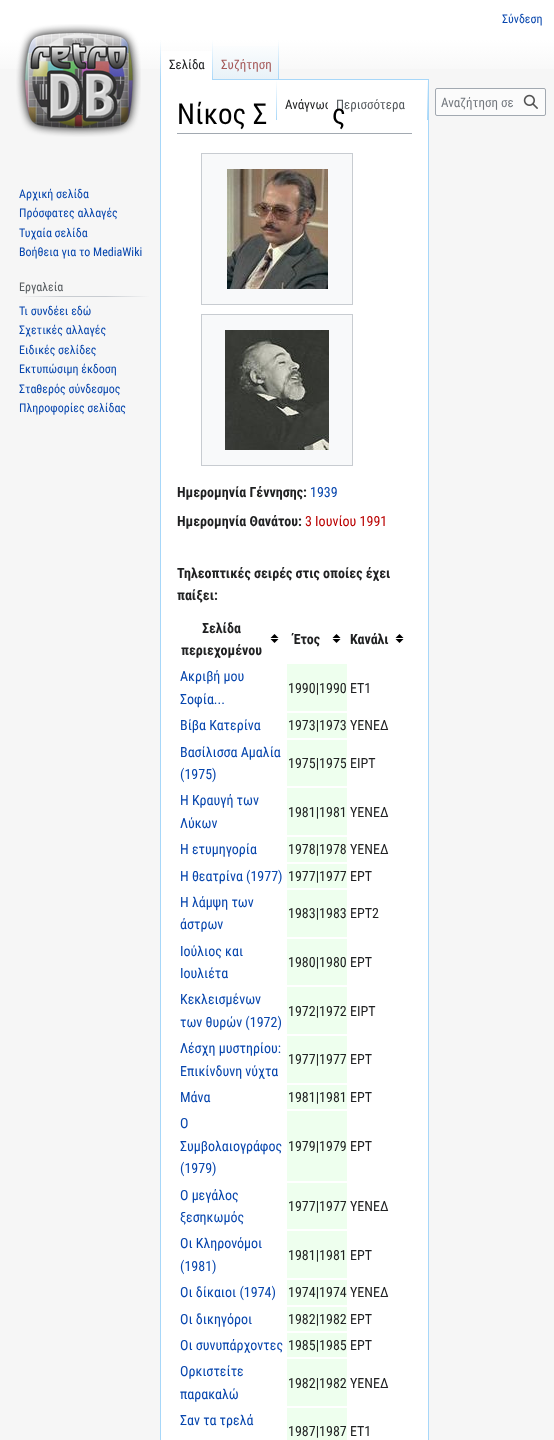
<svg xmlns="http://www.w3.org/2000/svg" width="554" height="1440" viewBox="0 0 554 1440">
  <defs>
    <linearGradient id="g1" gradientUnits="userSpaceOnUse" x1="277" y1="0" x2="277" y2="80"><stop offset="0.5" stop-color="#ffffff"/><stop offset="1" stop-color="#f6f6f6"/></linearGradient>
    <linearGradient id="g2" gradientUnits="userSpaceOnUse" x1="161" y1="40" x2="161" y2="80"><stop offset="0" stop-color="#a7d7f9" stop-opacity="0"/><stop offset="1" stop-color="#a7d7f9"/></linearGradient>
    <linearGradient id="g3" gradientUnits="userSpaceOnUse" x1="213" y1="40" x2="213" y2="80"><stop offset="0" stop-color="#ffffff"/><stop offset="1" stop-color="#a7d7f9"/></linearGradient>
    <linearGradient id="g4" gradientUnits="userSpaceOnUse" x1="246" y1="80" x2="246" y2="40"><stop offset="0" stop-color="#77c1f6"/><stop offset="0.03" stop-color="#e8f2f8"/><stop offset="1" stop-color="#ffffff"/></linearGradient>
    <linearGradient id="g5" gradientUnits="userSpaceOnUse" x1="279" y1="40" x2="279" y2="80"><stop offset="0" stop-color="#a7d7f9" stop-opacity="0"/><stop offset="1" stop-color="#a7d7f9"/></linearGradient>
    <linearGradient id="g6" gradientUnits="userSpaceOnUse" x1="277" y1="80" x2="277" y2="120"><stop offset="0" stop-color="#a7d7f9" stop-opacity="0"/><stop offset="1" stop-color="#a7d7f9"/></linearGradient>
    <clipPath id="clip1"><rect x="277" y="80" width="51" height="40"/></clipPath>
    <linearGradient id="g7" gradientUnits="userSpaceOnUse" x1="428" y1="80" x2="428" y2="120"><stop offset="0" stop-color="#ffffff"/><stop offset="1" stop-color="#a7d7f9"/></linearGradient>
    <linearGradient id="g8" gradientUnits="userSpaceOnUse" x1="19" y1="297" x2="150" y2="297"><stop offset="0" stop-color="#f6f6f6"/><stop offset="0.33" stop-color="#c8ccd1"/><stop offset="0.66" stop-color="#c8ccd1"/><stop offset="1" stop-color="#f6f6f6"/></linearGradient>
  </defs>
  <rect width="100%" height="100%" fill="#f6f6f6"/>
  <rect x="0" y="0" width="554" height="69" fill="url(#g1)"/>
  <text x="502" y="23" font-family="Roboto Condensed" font-size="12" fill="#0645ad">Σύνδεση</text>
  <rect x="160.5" y="79.5" width="268" height="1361" fill="#ffffff" stroke="#a7d7f9"/>
  <rect x="160" y="40" width="1" height="40" fill="url(#g2)"/>
  <rect x="161" y="51" width="51" height="29" fill="#ffffff"/>
  <rect x="212" y="40" width="1" height="40" fill="url(#g3)"/>
  <text x="169" y="69" font-family="Roboto Condensed" font-size="13" fill="#202122">Σελίδα</text>
  <rect x="213" y="46" width="66" height="33" fill="url(#g4)"/>
  <rect x="278" y="40" width="1" height="40" fill="url(#g5)"/>
  <text x="221" y="69" font-family="Roboto Condensed" font-size="13" fill="#a55858">Συζήτηση</text>
  <rect x="276" y="80" width="1" height="40" fill="url(#g6)"/>
  <g clip-path="url(#clip1)">
    <text x="285" y="109" font-family="Roboto Condensed" font-size="13" fill="#202122">Ανάγνωσ</text>
  </g>
  <rect x="427" y="80" width="1" height="40" fill="url(#g7)"/>
  <text x="336" y="109" font-family="Roboto Condensed" font-size="13" fill="#54595d">Περισσότερα</text>
  <rect x="435.5" y="88.5" width="110" height="27" rx="1.5" fill="#fbfbfb" stroke="#a2a9b1"/>
  <text x="441" y="107" font-family="Roboto Condensed" font-size="13" fill="#72777d">Αναζήτηση σε</text>
  <image x="523" y="94" width="15" height="15" href="img1.png"/>
  <image x="16" y="24" width="125" height="113" href="img2.png"/>
  <text x="19" y="198" font-family="Roboto Condensed" font-size="12" fill="#0645ad">Αρχική σελίδα</text>
  <text x="19" y="217" font-family="Roboto Condensed" font-size="12" fill="#0645ad">Πρόσφατες αλλαγές</text>
  <text x="19" y="237" font-family="Roboto Condensed" font-size="12" fill="#0645ad">Τυχαία σελίδα</text>
  <text x="19" y="256" font-family="Roboto Condensed" font-size="12" fill="#0645ad">Βοήθεια για το MediaWiki</text>
  <rect x="19" y="296" width="131" height="1" fill="url(#g8)"/>
  <text x="19" y="291" font-family="Roboto Condensed" font-size="12" fill="#54595d">Εργαλεία</text>
  <text x="19" y="315" font-family="Roboto Condensed" font-size="12" fill="#0645ad">Τι συνδέει εδώ</text>
  <text x="19" y="334" font-family="Roboto Condensed" font-size="12" fill="#0645ad">Σχετικές αλλαγές</text>
  <text x="19" y="354" font-family="Roboto Condensed" font-size="12" fill="#0645ad">Ειδικές σελίδες</text>
  <text x="19" y="373" font-family="Roboto Condensed" font-size="12" fill="#0645ad">Εκτυπώσιμη έκδοση</text>
  <text x="19" y="393" font-family="Roboto Condensed" font-size="12" fill="#0645ad">Σταθερός σύνδεσμος</text>
  <text x="19" y="412" font-family="Roboto Condensed" font-size="12" fill="#0645ad">Πληροφορίες σελίδας</text>
  <rect x="177" y="133" width="235" height="1" fill="#a2a9b1"/>
  <text x="177" y="124" font-family="Roboto Condensed" font-size="29" fill="#000000">Νίκος Σ</text>
  <text x="332" y="124" font-family="Roboto Condensed" font-size="29" fill="#000000">ς</text>
  <rect x="201.5" y="153.5" width="151" height="151" fill="#f8f9fa" stroke="#c8ccd1"/>
  <image x="227" y="169" width="101" height="120" href="img3.png"/>
  <rect x="201.5" y="314.5" width="151" height="151" fill="#f8f9fa" stroke="#c8ccd1"/>
  <image x="225" y="330" width="104" height="120" href="img4.png"/>
  <text x="177" y="497" font-family="Roboto Condensed" font-size="14" font-weight="bold" fill="#202122">Ημερομηνία Γέννησης:</text>
  <text x="310" y="497" font-family="Roboto Condensed" font-size="14" fill="#0645ad">1939</text>
  <text x="177" y="526" font-family="Roboto Condensed" font-size="14" font-weight="bold" fill="#202122">Ημερομηνία Θανάτου:</text>
  <text x="305" y="526" font-family="Roboto Condensed" font-size="14" fill="#ba0000">3 Ιουνίου 1991</text>
  <text x="177" y="578" font-family="Roboto Condensed" font-size="14" font-weight="bold" fill="#202122">Τηλεοπτικές σειρές στις οποίες έχει</text>
  <text x="177" y="600" font-family="Roboto Condensed" font-size="14" font-weight="bold" fill="#202122">παίξει:</text>
  <image x="270" y="634" width="9" height="9" href="img5.png"/>
  <text x="202" y="633" font-family="Roboto Condensed" font-size="14" font-weight="bold" fill="#202122">Σελίδα</text>
  <text x="181" y="655" font-family="Roboto Condensed" font-size="14" font-weight="bold" fill="#202122">περιεχομένου</text>
  <image x="332" y="634" width="9" height="9" href="img5.png"/>
  <text x="293" y="644" font-family="Roboto Condensed" font-size="14" font-weight="bold" fill="#202122">Έτος</text>
  <image x="395" y="634" width="9" height="9" href="img5.png"/>
  <text x="350" y="644" font-family="Roboto Condensed" font-size="14" font-weight="bold" fill="#202122">Κανάλι</text>
  <text x="180" y="681" font-family="Roboto Condensed" font-size="14" fill="#0645ad">Ακριβή μου</text>
  <text x="180" y="704" font-family="Roboto Condensed" font-size="14" fill="#0645ad">Σοφία...</text>
  <rect x="287" y="664" width="60" height="47" fill="#eeffee"/>
  <text x="288" y="693" font-family="Roboto Condensed" font-size="14" fill="#202122">1990|1990</text>
  <text x="350" y="693" font-family="Roboto Condensed" font-size="14" fill="#202122">ΕΤ1</text>
  <text x="180" y="730" font-family="Roboto Condensed" font-size="14" fill="#0645ad">Βίβα Κατερίνα</text>
  <rect x="287" y="713" width="60" height="25" fill="#eeffee"/>
  <text x="288" y="730" font-family="Roboto Condensed" font-size="14" fill="#202122">1973|1973</text>
  <text x="350" y="730" font-family="Roboto Condensed" font-size="14" fill="#202122">ΥΕΝΕΔ</text>
  <text x="180" y="757" font-family="Roboto Condensed" font-size="14" fill="#0645ad">Βασίλισσα Αμαλία</text>
  <text x="180" y="779" font-family="Roboto Condensed" font-size="14" fill="#0645ad">(1975)</text>
  <rect x="287" y="740" width="60" height="46" fill="#eeffee"/>
  <text x="288" y="768" font-family="Roboto Condensed" font-size="14" fill="#202122">1975|1975</text>
  <text x="350" y="768" font-family="Roboto Condensed" font-size="14" fill="#202122">ΕΙΡΤ</text>
  <text x="180" y="805" font-family="Roboto Condensed" font-size="14" fill="#0645ad">Η Κραυγή των</text>
  <text x="180" y="828" font-family="Roboto Condensed" font-size="14" fill="#0645ad">Λύκων</text>
  <rect x="287" y="788" width="60" height="47" fill="#eeffee"/>
  <text x="288" y="817" font-family="Roboto Condensed" font-size="14" fill="#202122">1981|1981</text>
  <text x="350" y="817" font-family="Roboto Condensed" font-size="14" fill="#202122">ΥΕΝΕΔ</text>
  <text x="180" y="854" font-family="Roboto Condensed" font-size="14" fill="#0645ad">Η ετυμηγορία</text>
  <rect x="287" y="837" width="60" height="25" fill="#eeffee"/>
  <text x="288" y="854" font-family="Roboto Condensed" font-size="14" fill="#202122">1978|1978</text>
  <text x="350" y="854" font-family="Roboto Condensed" font-size="14" fill="#202122">ΥΕΝΕΔ</text>
  <text x="180" y="881" font-family="Roboto Condensed" font-size="14" fill="#0645ad">Η θεατρίνα (1977)</text>
  <rect x="287" y="864" width="60" height="24" fill="#eeffee"/>
  <text x="288" y="881" font-family="Roboto Condensed" font-size="14" fill="#202122">1977|1977</text>
  <text x="350" y="881" font-family="Roboto Condensed" font-size="14" fill="#202122">ΕΡΤ</text>
  <text x="180" y="907" font-family="Roboto Condensed" font-size="14" fill="#0645ad">Η λάμψη των</text>
  <text x="180" y="929" font-family="Roboto Condensed" font-size="14" fill="#0645ad">άστρων</text>
  <rect x="287" y="890" width="60" height="47" fill="#eeffee"/>
  <text x="288" y="918" font-family="Roboto Condensed" font-size="14" fill="#202122">1983|1983</text>
  <text x="350" y="918" font-family="Roboto Condensed" font-size="14" fill="#202122">ΕΡΤ2</text>
  <text x="180" y="956" font-family="Roboto Condensed" font-size="14" fill="#0645ad">Ιούλιος και</text>
  <text x="180" y="978" font-family="Roboto Condensed" font-size="14" fill="#0645ad">Ιουλιέτα</text>
  <rect x="287" y="939" width="60" height="46" fill="#eeffee"/>
  <text x="288" y="967" font-family="Roboto Condensed" font-size="14" fill="#202122">1980|1980</text>
  <text x="350" y="967" font-family="Roboto Condensed" font-size="14" fill="#202122">ΕΡΤ</text>
  <text x="180" y="1004" font-family="Roboto Condensed" font-size="14" fill="#0645ad">Κεκλεισμένων</text>
  <text x="180" y="1027" font-family="Roboto Condensed" font-size="14" fill="#0645ad">των θυρών (1972)</text>
  <rect x="287" y="987" width="60" height="47" fill="#eeffee"/>
  <text x="288" y="1016" font-family="Roboto Condensed" font-size="14" fill="#202122">1972|1972</text>
  <text x="350" y="1016" font-family="Roboto Condensed" font-size="14" fill="#202122">ΕΙΡΤ</text>
  <text x="180" y="1053" font-family="Roboto Condensed" font-size="14" fill="#0645ad">Λέσχη μυστηρίου:</text>
  <text x="180" y="1076" font-family="Roboto Condensed" font-size="14" fill="#0645ad">Επικίνδυνη νύχτα</text>
  <rect x="287" y="1036" width="60" height="47" fill="#eeffee"/>
  <text x="288" y="1064" font-family="Roboto Condensed" font-size="14" fill="#202122">1977|1977</text>
  <text x="350" y="1064" font-family="Roboto Condensed" font-size="14" fill="#202122">ΕΡΤ</text>
  <text x="180" y="1102" font-family="Roboto Condensed" font-size="14" fill="#0645ad">Μάνα</text>
  <rect x="287" y="1085" width="60" height="24" fill="#eeffee"/>
  <text x="288" y="1102" font-family="Roboto Condensed" font-size="14" fill="#202122">1981|1981</text>
  <text x="350" y="1102" font-family="Roboto Condensed" font-size="14" fill="#202122">ΕΡΤ</text>
  <text x="180" y="1128" font-family="Roboto Condensed" font-size="14" fill="#0645ad">Ο</text>
  <text x="180" y="1151" font-family="Roboto Condensed" font-size="14" fill="#0645ad">Συμβολαιογράφος</text>
  <text x="180" y="1173" font-family="Roboto Condensed" font-size="14" fill="#0645ad">(1979)</text>
  <rect x="287" y="1111" width="60" height="70" fill="#eeffee"/>
  <text x="288" y="1151" font-family="Roboto Condensed" font-size="14" fill="#202122">1979|1979</text>
  <text x="350" y="1151" font-family="Roboto Condensed" font-size="14" fill="#202122">ΕΡΤ</text>
  <text x="180" y="1200" font-family="Roboto Condensed" font-size="14" fill="#0645ad">Ο μεγάλος</text>
  <text x="180" y="1222" font-family="Roboto Condensed" font-size="14" fill="#0645ad">ξεσηκωμός</text>
  <rect x="287" y="1183" width="60" height="46" fill="#eeffee"/>
  <text x="288" y="1211" font-family="Roboto Condensed" font-size="14" fill="#202122">1977|1977</text>
  <text x="350" y="1211" font-family="Roboto Condensed" font-size="14" fill="#202122">ΥΕΝΕΔ</text>
  <text x="180" y="1248" font-family="Roboto Condensed" font-size="14" fill="#0645ad">Οι Κληρονόμοι</text>
  <text x="180" y="1271" font-family="Roboto Condensed" font-size="14" fill="#0645ad">(1981)</text>
  <rect x="287" y="1231" width="60" height="47" fill="#eeffee"/>
  <text x="288" y="1260" font-family="Roboto Condensed" font-size="14" fill="#202122">1981|1981</text>
  <text x="350" y="1260" font-family="Roboto Condensed" font-size="14" fill="#202122">ΕΡΤ</text>
  <text x="180" y="1297" font-family="Roboto Condensed" font-size="14" fill="#0645ad">Οι δίκαιοι (1974)</text>
  <rect x="287" y="1280" width="60" height="25" fill="#eeffee"/>
  <text x="288" y="1297" font-family="Roboto Condensed" font-size="14" fill="#202122">1974|1974</text>
  <text x="350" y="1297" font-family="Roboto Condensed" font-size="14" fill="#202122">ΥΕΝΕΔ</text>
  <text x="180" y="1324" font-family="Roboto Condensed" font-size="14" fill="#0645ad">Οι δικηγόροι</text>
  <rect x="287" y="1307" width="60" height="24" fill="#eeffee"/>
  <text x="288" y="1324" font-family="Roboto Condensed" font-size="14" fill="#202122">1982|1982</text>
  <text x="350" y="1324" font-family="Roboto Condensed" font-size="14" fill="#202122">ΕΡΤ</text>
  <text x="180" y="1350" font-family="Roboto Condensed" font-size="14" fill="#0645ad">Οι συνυπάρχοντες</text>
  <rect x="287" y="1333" width="60" height="24" fill="#eeffee"/>
  <text x="288" y="1350" font-family="Roboto Condensed" font-size="14" fill="#202122">1985|1985</text>
  <text x="350" y="1350" font-family="Roboto Condensed" font-size="14" fill="#202122">ΕΡΤ</text>
  <text x="180" y="1376" font-family="Roboto Condensed" font-size="14" fill="#0645ad">Ορκιστείτε</text>
  <text x="180" y="1399" font-family="Roboto Condensed" font-size="14" fill="#0645ad">παρακαλώ</text>
  <rect x="287" y="1359" width="60" height="47" fill="#eeffee"/>
  <text x="288" y="1388" font-family="Roboto Condensed" font-size="14" fill="#202122">1982|1982</text>
  <text x="350" y="1388" font-family="Roboto Condensed" font-size="14" fill="#202122">ΥΕΝΕΔ</text>
  <text x="180" y="1425" font-family="Roboto Condensed" font-size="14" fill="#0645ad">Σαν τα τρελά</text>
  <rect x="287" y="1408" width="60" height="32" fill="#eeffee"/>
  <text x="288" y="1436" font-family="Roboto Condensed" font-size="14" fill="#202122">1987|1987</text>
  <text x="350" y="1436" font-family="Roboto Condensed" font-size="14" fill="#202122">ΕΤ1</text>
</svg>
